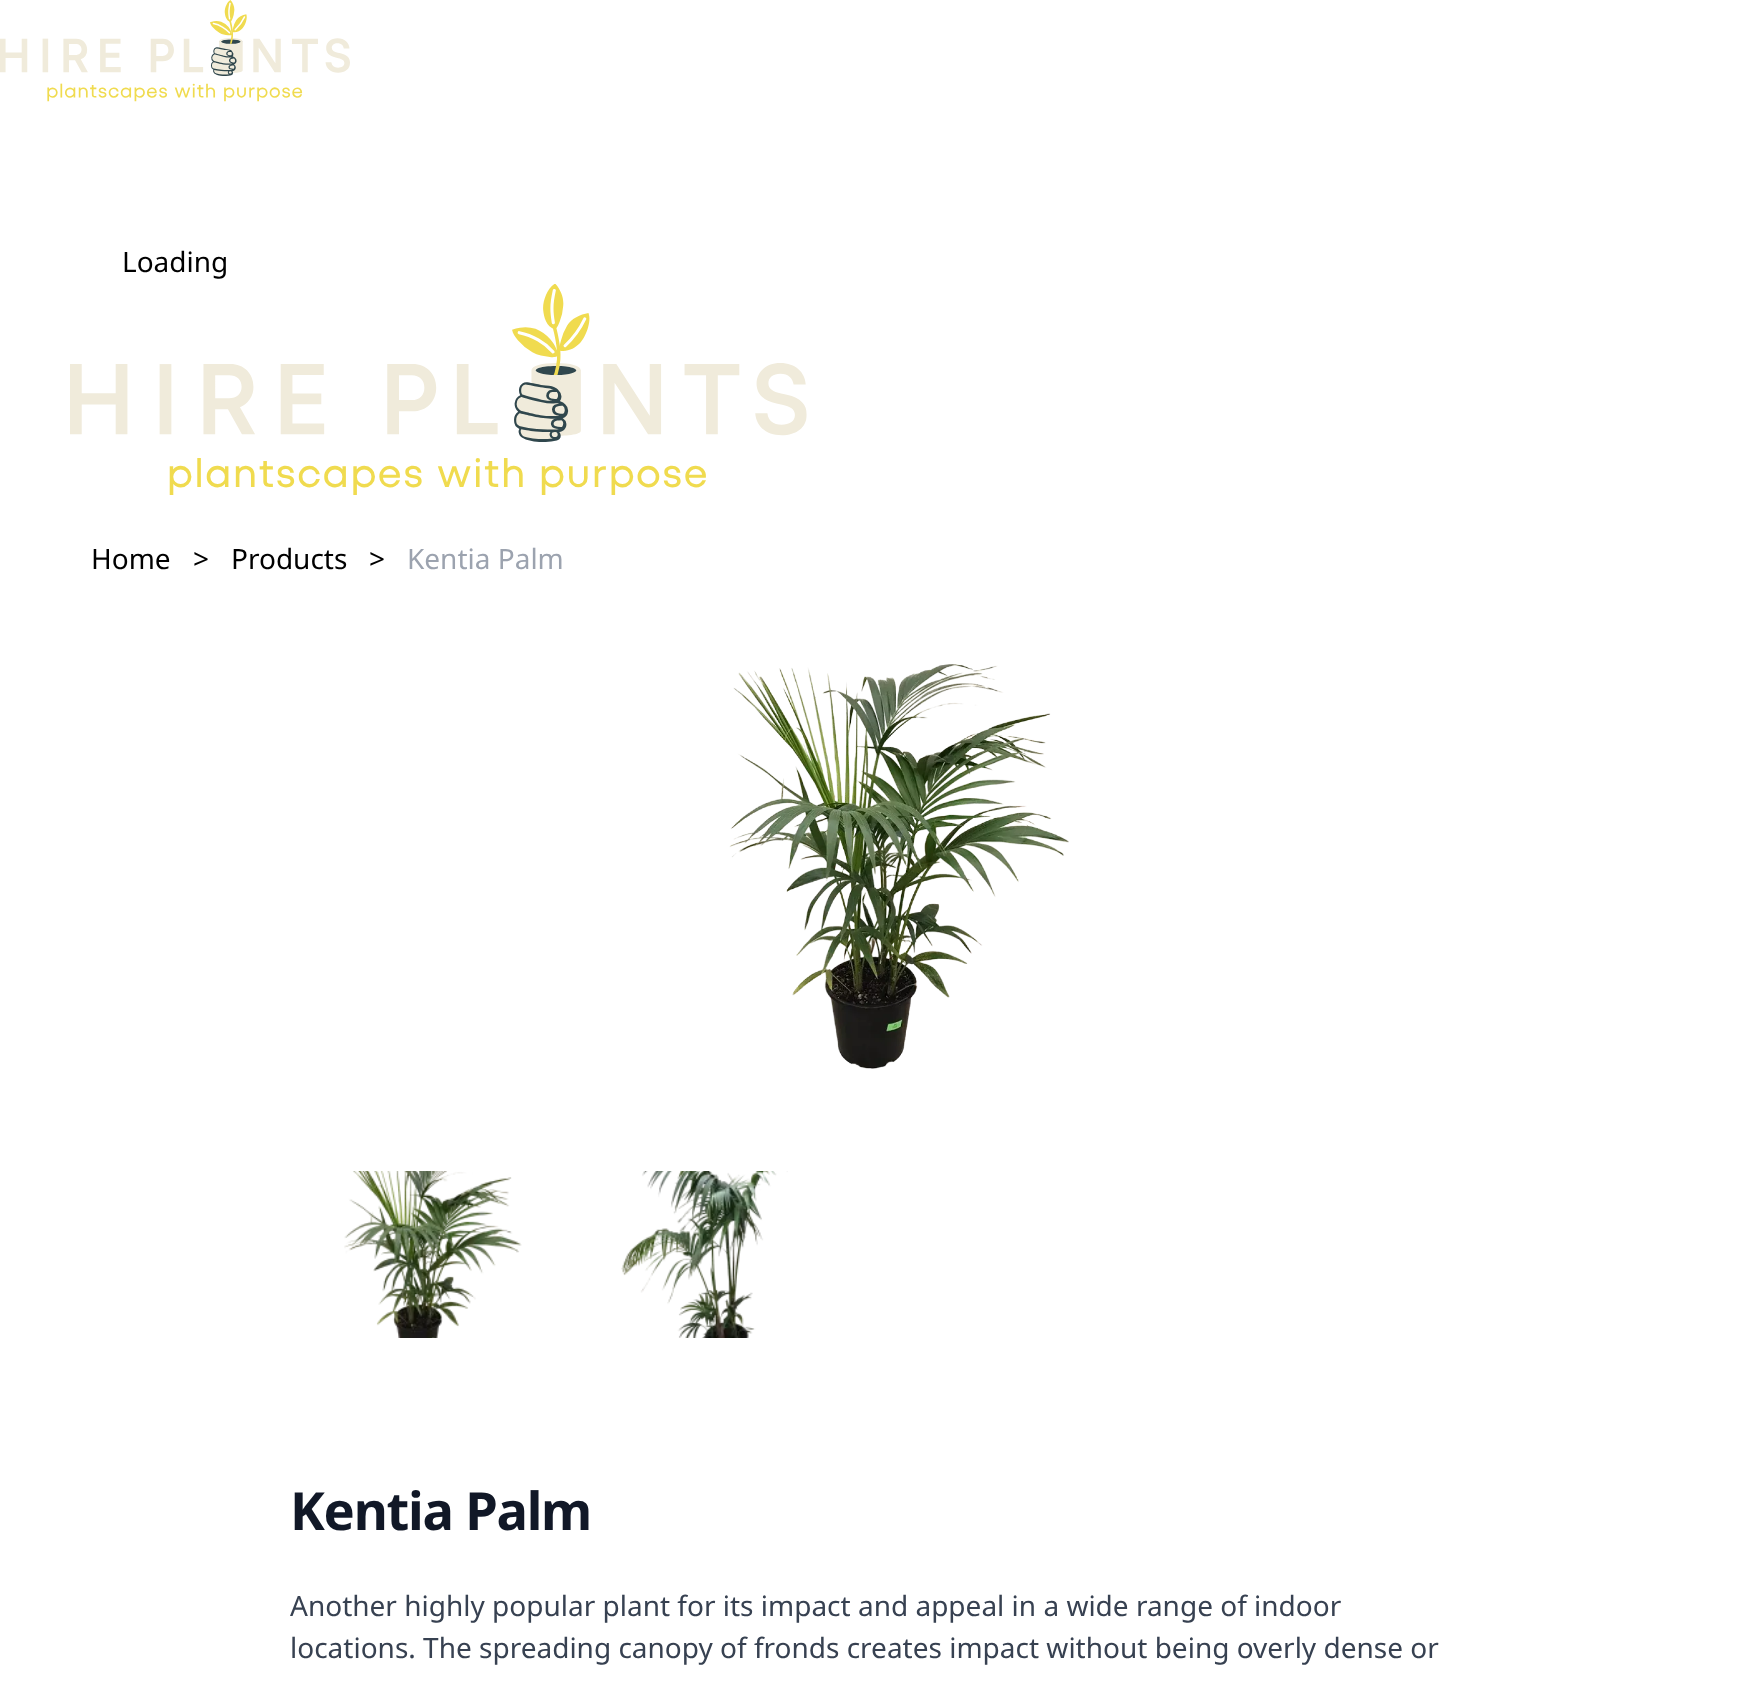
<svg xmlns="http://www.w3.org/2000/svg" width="1756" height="1685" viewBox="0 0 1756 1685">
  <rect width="100%" height="100%" fill="#ffffff"/>
  <image x="0" y="0" width="350" height="102" href="img1.png"/>
  <text x="122" y="272" font-family="Noto Sans" font-size="28" fill="#000000">Loading</text>
  <image x="70" y="284" width="737" height="211" href="img2.png"/>
  <text x="91" y="569" font-family="Noto Sans" font-size="28" fill="#000000">Home</text>
  <text x="193" y="569" font-family="Noto Sans" font-size="28" fill="#000000">&gt;</text>
  <text x="231" y="569" font-family="Noto Sans" font-size="28" fill="#000000">Products</text>
  <text x="369" y="569" font-family="Noto Sans" font-size="28" fill="#000000">&gt;</text>
  <text x="407" y="569" font-family="Noto Sans" font-size="28" fill="#9ca3af">Kentia Palm</text>
  <image x="729" y="664" width="340" height="405" href="img3.png"/>
  <image x="344" y="1171" width="178" height="167" href="img4.png"/>
  <image x="621" y="1171" width="167" height="167" href="img5.png"/>
  <text x="290" y="1530" font-family="Noto Sans" font-size="52.5" font-weight="bold" letter-spacing="-1.25" fill="#111827">Kentia Palm</text>
  <text x="290" y="1616" font-family="Noto Sans" font-size="28" fill="#374151">Another highly popular plant for its impact and appeal in a wide range of indoor</text>
  <text x="290" y="1658" font-family="Noto Sans" font-size="28" fill="#374151">locations. The spreading canopy of fronds creates impact without being overly dense or</text>
</svg>
